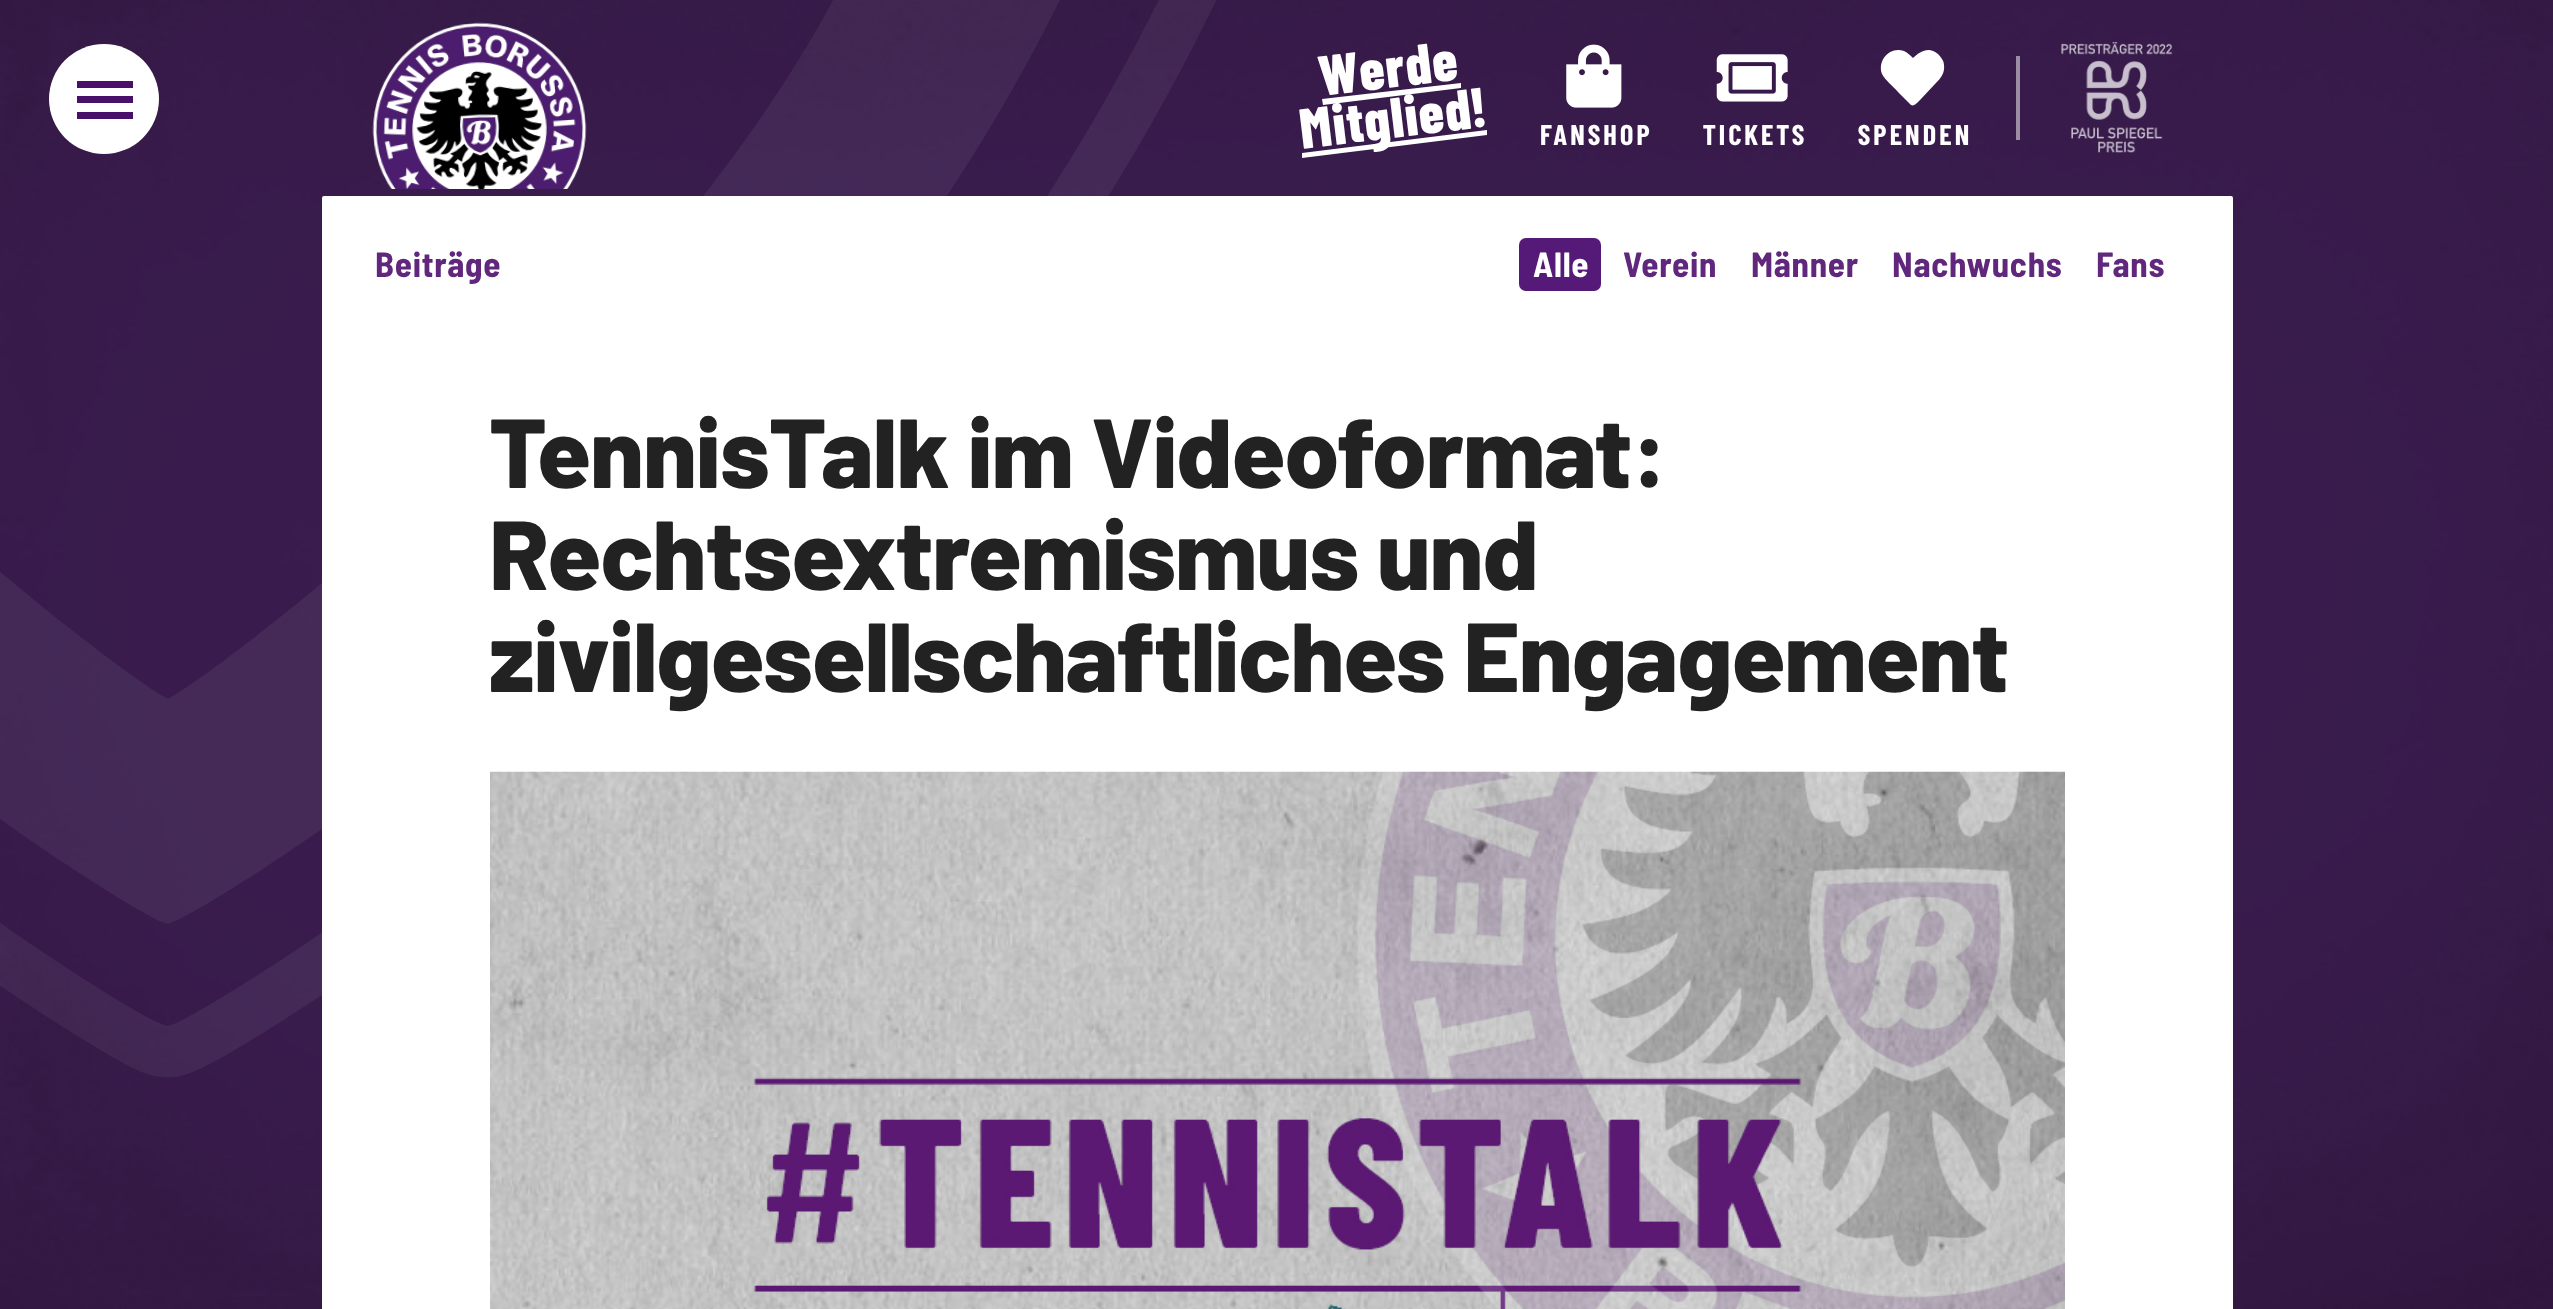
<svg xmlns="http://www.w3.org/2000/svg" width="2553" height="1309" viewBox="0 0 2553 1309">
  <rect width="100%" height="100%" fill="#3a1d4e"/>
  <image x="0" y="0" width="1217" height="1078" href="img1.png"/>
  <image x="0" y="0" width="2553" height="1309" href="img2.png"/>
  <circle cx="104" cy="99" r="55" fill="#ffffff"/>
  <rect x="77" y="81" width="56" height="7" fill="#481068"/>
  <rect x="77" y="96" width="56" height="7" fill="#481068"/>
  <rect x="77" y="112" width="56" height="7" fill="#481068"/>
  <image x="372" y="22" width="215" height="167" href="img3.png"/>
  <path d="M1322 99L1461 83V88L1323 105Z" fill="#ffffff"/>
  <text x="1322" y="96" transform="rotate(-6.9 1322 96)" font-family="Barlow Condensed" font-size="56.5" font-weight="800" letter-spacing="1.5" fill="#ffffff">Werde</text>
  <path d="M1302 153L1487 130V135L1302 158Z" fill="#ffffff"/>
  <text x="1302" y="149" transform="rotate(-6.9 1302 149)" font-family="Barlow Condensed" font-size="56.5" font-weight="800" letter-spacing="1.5" fill="#ffffff">Mitglied!</text>
  <image x="1566" y="44" width="56" height="64" href="img4.png"/>
  <text x="1540" y="145" font-family="Barlow Condensed" font-size="28.5" font-weight="bold" letter-spacing="3.25" fill="#ffffff">FANSHOP</text>
  <image x="1716" y="54" width="72" height="48" href="img5.png"/>
  <text x="1703" y="145" font-family="Barlow Condensed" font-size="28.5" font-weight="bold" letter-spacing="3.25" fill="#ffffff">TICKETS</text>
  <path d="M1938 54C1941 57 1944 61 1944 65C1945 73 1941 78 1935 84L1920 100C1918 102 1914 107 1911 105L1898 92C1894 87 1885 80 1882 74C1877 60 1890 46 1904 51C1908 53 1910 55 1913 58C1920 51 1929 46 1938 54Z" fill="#ffffff"/>
  <text x="1858" y="145" font-family="Barlow Condensed" font-size="28.5" font-weight="bold" letter-spacing="3.25" fill="#ffffff">SPENDEN</text>
  <rect x="2016" y="56" width="4" height="84" fill="#9c8da5"/>
  <image x="2061" y="42" width="111" height="111" href="img6.png"/>
  <rect x="322" y="196" width="1911" height="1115" rx="2" fill="#ffffff"/>
  <text x="375" y="277" font-family="Barlow Semi Condensed" font-size="35" font-weight="bold" letter-spacing="0.75" fill="#60277c">Beiträge</text>
  <rect x="1519" y="238" width="82" height="53" rx="7" fill="#551a77"/>
  <text x="1533" y="277" font-family="Barlow Semi Condensed" font-size="35" font-weight="bold" letter-spacing="0.75" fill="#ffffff">Alle</text>
  <text x="1623" y="277" font-family="Barlow Semi Condensed" font-size="35" font-weight="bold" letter-spacing="0.75" fill="#60277c">Verein</text>
  <text x="1751" y="277" font-family="Barlow Semi Condensed" font-size="35" font-weight="bold" letter-spacing="0.75" fill="#60277c">Männer</text>
  <text x="1892" y="277" font-family="Barlow Semi Condensed" font-size="35" font-weight="bold" letter-spacing="0.75" fill="#60277c">Nachwuchs</text>
  <text x="2096" y="277" font-family="Barlow Semi Condensed" font-size="35" font-weight="bold" letter-spacing="0.75" fill="#60277c">Fans</text>
  <text x="489" y="488" font-family="Barlow" font-size="98" font-weight="800" letter-spacing="-1" fill="#222222">TennisTalk im Videoformat:</text>
  <text x="489" y="590" font-family="Barlow" font-size="98" font-weight="800" letter-spacing="-1" fill="#222222">Rechtsextremismus und</text>
  <text x="489" y="692" font-family="Barlow" font-size="98" font-weight="800" letter-spacing="-1" fill="#222222">zivilgesellschaftliches Engagement</text>
  <image x="490" y="771" width="1575" height="538" href="img7.png"/>
</svg>
